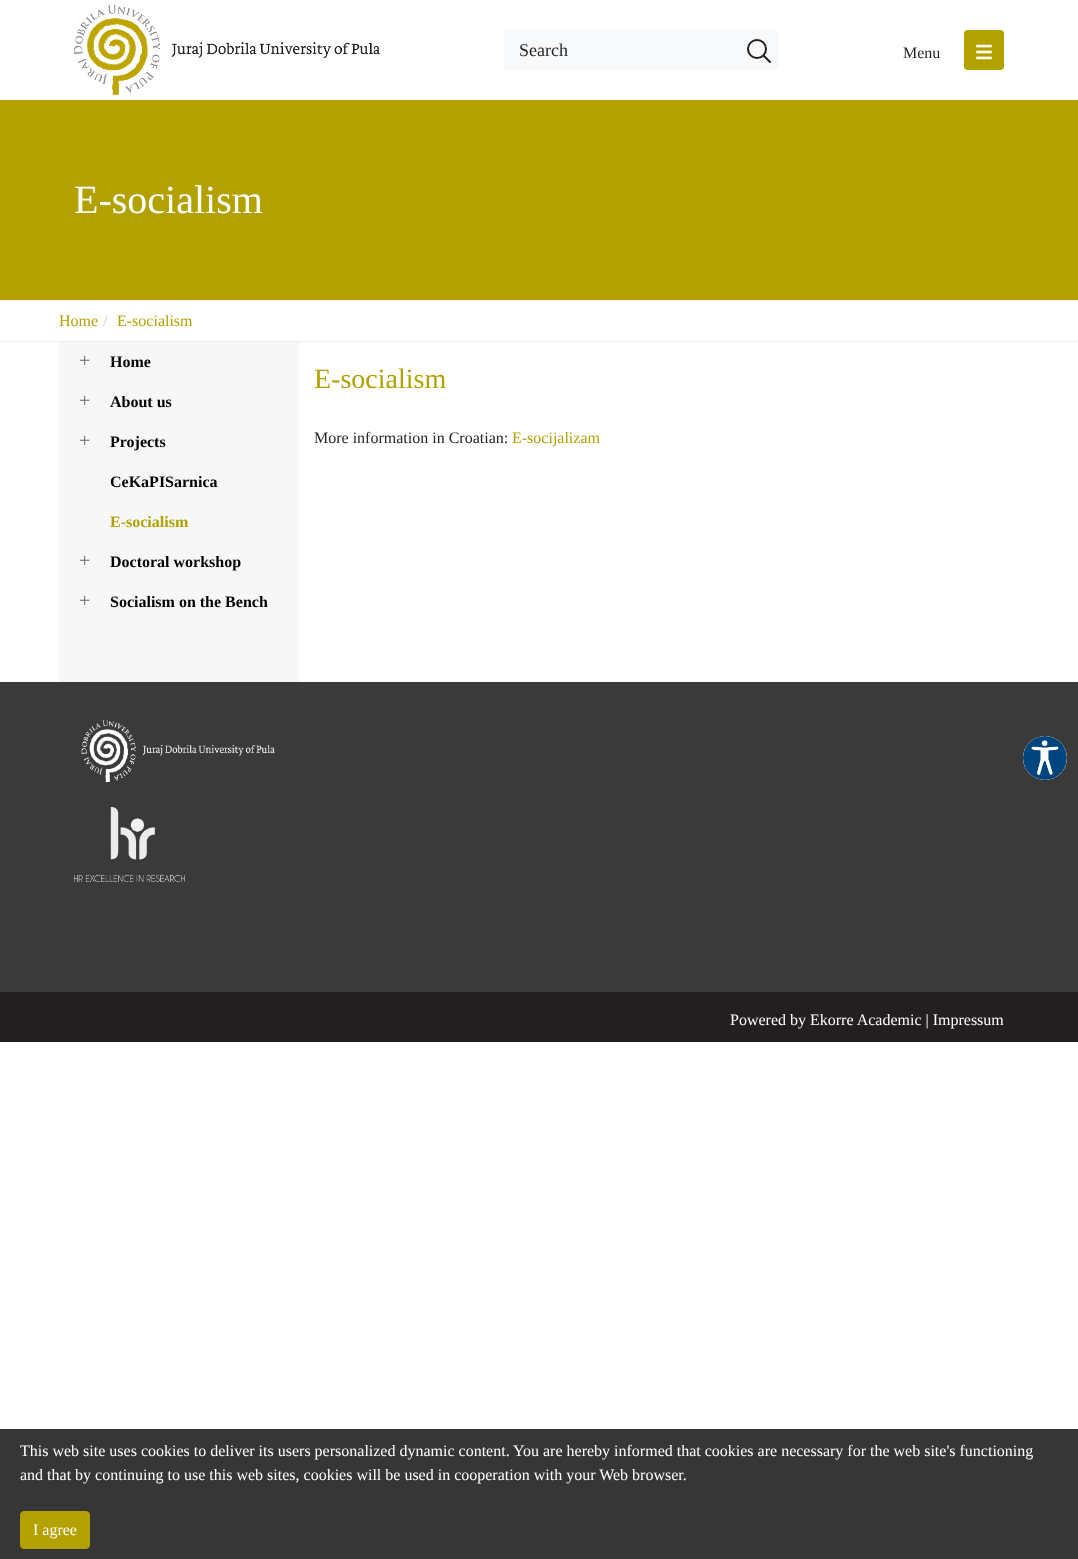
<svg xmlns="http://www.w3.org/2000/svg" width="1078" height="1559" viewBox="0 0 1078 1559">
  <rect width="100%" height="100%" fill="#ffffff"/>
  <image x="74" y="5" width="306" height="90" href="img1.png"/>
  <rect x="504" y="30" width="275" height="40" rx="4" fill="#f8f9fa"/>
  <text x="519" y="56" font-family="Liberation Serif" font-size="18" fill="#231f20">Search</text>
  <circle cx="757" cy="49" r="9" fill="none" stroke="#231f20" stroke-width="2"/>
  <path d="M770 62L764 56" fill="none" stroke="#231f20" stroke-width="2" stroke-linecap="round" stroke-linejoin="round"/>
  <text x="903" y="58" font-family="Liberation Serif" font-size="16" fill="#212529">Menu</text>
  <rect x="964" y="30" width="40" height="40" rx="4" fill="#b3a100"/>
  <image x="976" y="44" width="16" height="16" href="img2.png"/>
  <rect x="0" y="100" width="1078" height="200" fill="#b3a100"/>
  <text x="74" y="213" font-family="Liberation Serif" font-size="40" fill="#ffffff">E-socialism</text>
  <rect x="0" y="300" width="1078" height="1" fill="#eeeeee"/>
  <rect x="0" y="341" width="1078" height="1" fill="#eeeeee"/>
  <text x="59" y="326" font-family="Liberation Serif" font-size="16" fill="#b3a100">Home</text>
  <text x="103" y="326" font-family="Liberation Serif" font-size="16" fill="#cccccc">/</text>
  <text x="117" y="326" font-family="Liberation Serif" font-size="16" fill="#b3a100">E-socialism</text>
  <rect x="59" y="342" width="240" height="340" fill="#f7f7f7"/>
  <text x="79" y="367" font-family="Liberation Serif" font-size="20" fill="#6a6a6a">+</text>
  <text x="110" y="367" font-family="Liberation Serif" font-size="16" font-weight="bold" fill="#000000">Home</text>
  <text x="79" y="407" font-family="Liberation Serif" font-size="20" fill="#6a6a6a">+</text>
  <text x="110" y="407" font-family="Liberation Serif" font-size="16" font-weight="bold" fill="#000000">About us</text>
  <text x="79" y="447" font-family="Liberation Serif" font-size="20" fill="#6a6a6a">+</text>
  <text x="110" y="447" font-family="Liberation Serif" font-size="16" font-weight="bold" fill="#000000">Projects</text>
  <text x="110" y="487" font-family="Liberation Serif" font-size="16" font-weight="bold" fill="#000000">CeKaPISarnica</text>
  <text x="110" y="527" font-family="Liberation Serif" font-size="16" font-weight="bold" fill="#b3a100">E-socialism</text>
  <text x="79" y="567" font-family="Liberation Serif" font-size="20" fill="#6a6a6a">+</text>
  <text x="110" y="567" font-family="Liberation Serif" font-size="16" font-weight="bold" fill="#000000">Doctoral workshop</text>
  <text x="79" y="607" font-family="Liberation Serif" font-size="20" fill="#6a6a6a">+</text>
  <text x="110" y="607" font-family="Liberation Serif" font-size="16" font-weight="bold" fill="#000000">Socialism on the Bench</text>
  <text x="314" y="388" font-family="Liberation Serif" font-size="28" fill="#b3a100">E-socialism</text>
  <text x="314" y="443" font-family="Liberation Serif" font-size="16" fill="#212529">More information in Croatian:</text>
  <text x="512" y="443" font-family="Liberation Serif" font-size="16" fill="#b3a100">E-socijalizam</text>
  <rect x="0" y="682" width="1078" height="310" fill="#3a3a3a"/>
  <image x="81" y="719" width="194" height="64" href="img3.png"/>
  <image x="74" y="807" width="111" height="75" href="img4.png"/>
  <circle cx="1045" cy="758" r="22" fill="#ffffff"/>
  <image x="1023" y="736" width="44" height="44" href="img5.png"/>
  <rect x="0" y="992" width="1078" height="50" fill="#231f20"/>
  <text x="730" y="1025" font-family="Liberation Serif" font-size="16" fill="#ffffff">Powered by Ekorre Academic | Impressum</text>
  <rect x="0" y="1429" width="1078" height="130" fill="#363636"/>
  <text x="20" y="1456" font-family="Liberation Serif" font-size="16" fill="#ffffff">This web site uses cookies to deliver its users personalized dynamic content. You are hereby informed that cookies are necessary for the web site's functioning</text>
  <text x="20" y="1480" font-family="Liberation Serif" font-size="16" fill="#ffffff">and that by continuing to use this web sites, cookies will be used in cooperation with your Web browser.</text>
  <rect x="20.5" y="1511.5" width="69" height="37" rx="3.5" fill="#b3a100" stroke="#b3a100"/>
  <text x="33" y="1535" font-family="Liberation Serif" font-size="16" fill="#ffffff">I agree</text>
</svg>
